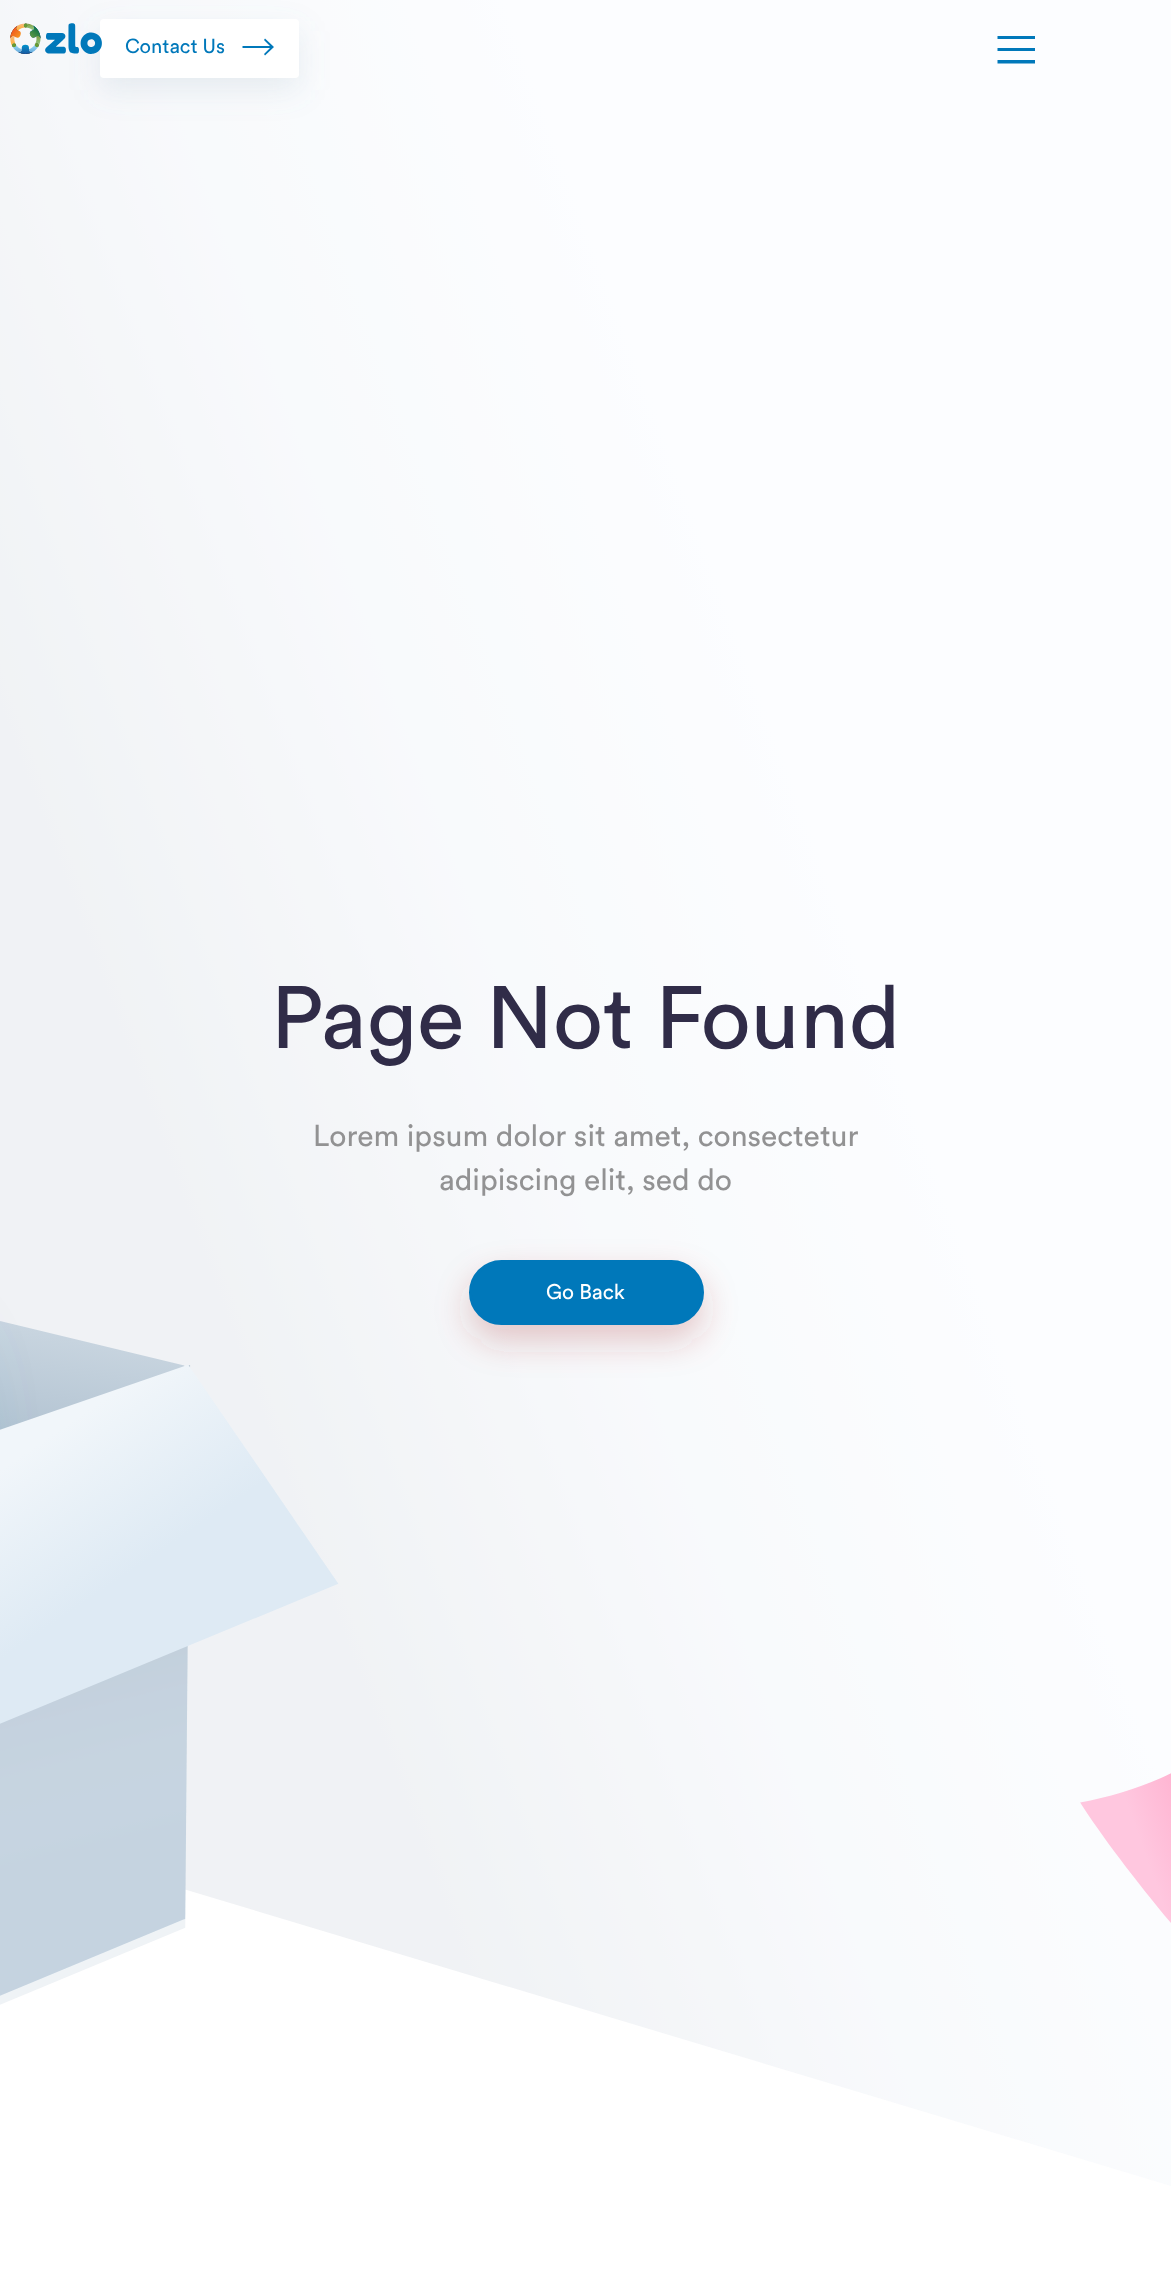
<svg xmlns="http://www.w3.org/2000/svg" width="1171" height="2292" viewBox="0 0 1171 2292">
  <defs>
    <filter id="blur1" x="-50%" y="-200%" width="200%" height="500%"><feGaussianBlur stdDeviation="15.5"/></filter>
    <filter id="blur2" x="-50%" y="-200%" width="200%" height="500%"><feGaussianBlur stdDeviation="17"/></filter>
  </defs>
  <rect width="100%" height="100%" fill="#ffffff"/>
  <image x="0" y="0" width="1171" height="2186" href="img2.png"/>
  <rect x="100" y="31" width="199" height="59" rx="4" fill="#7b93ab" fill-opacity="0.15" filter="url(#blur1)"/>
  <rect x="100" y="19" width="199" height="59" rx="4" fill="#ffffff"/>
  <image x="10" y="23" width="92" height="31" href="img1.png"/>
  <text x="125" y="53" font-family="Circular" font-size="20" fill="#0078ba">Contact Us</text>
  <path d="M265 38.5L274 47L265 55.5L264 54L270 48H242.5V46H270L264 40Z" fill="#0078ba"/>
  <path d="M997.5 39V36H1035V39ZM997.5 51V48H1035V51ZM997.5 63.5V60H1035V63.5Z" fill="#0078ba"/>
  <text x="271" y="1048" font-family="Circular" font-size="87.5" fill="#302c48">Page Not Found</text>
  <text x="313" y="1146" font-family="Circular" font-size="30" fill="#929293">Lorem ipsum dolor sit amet, consectetur</text>
  <text x="439" y="1190" font-family="Circular" font-size="30" fill="#929293">adipiscing elit, sed do</text>
  <rect x="469" y="1276" width="235" height="65" rx="32.5" fill="#a33035" fill-opacity="0.25" filter="url(#blur2)"/>
  <rect x="470.5" y="1261.5" width="232" height="62" rx="31" fill="#0078ba" stroke="#0078ba" stroke-width="3"/>
  <text x="546" y="1299" font-family="Circular" font-size="21" fill="#ffffff">Go Back</text>
</svg>
